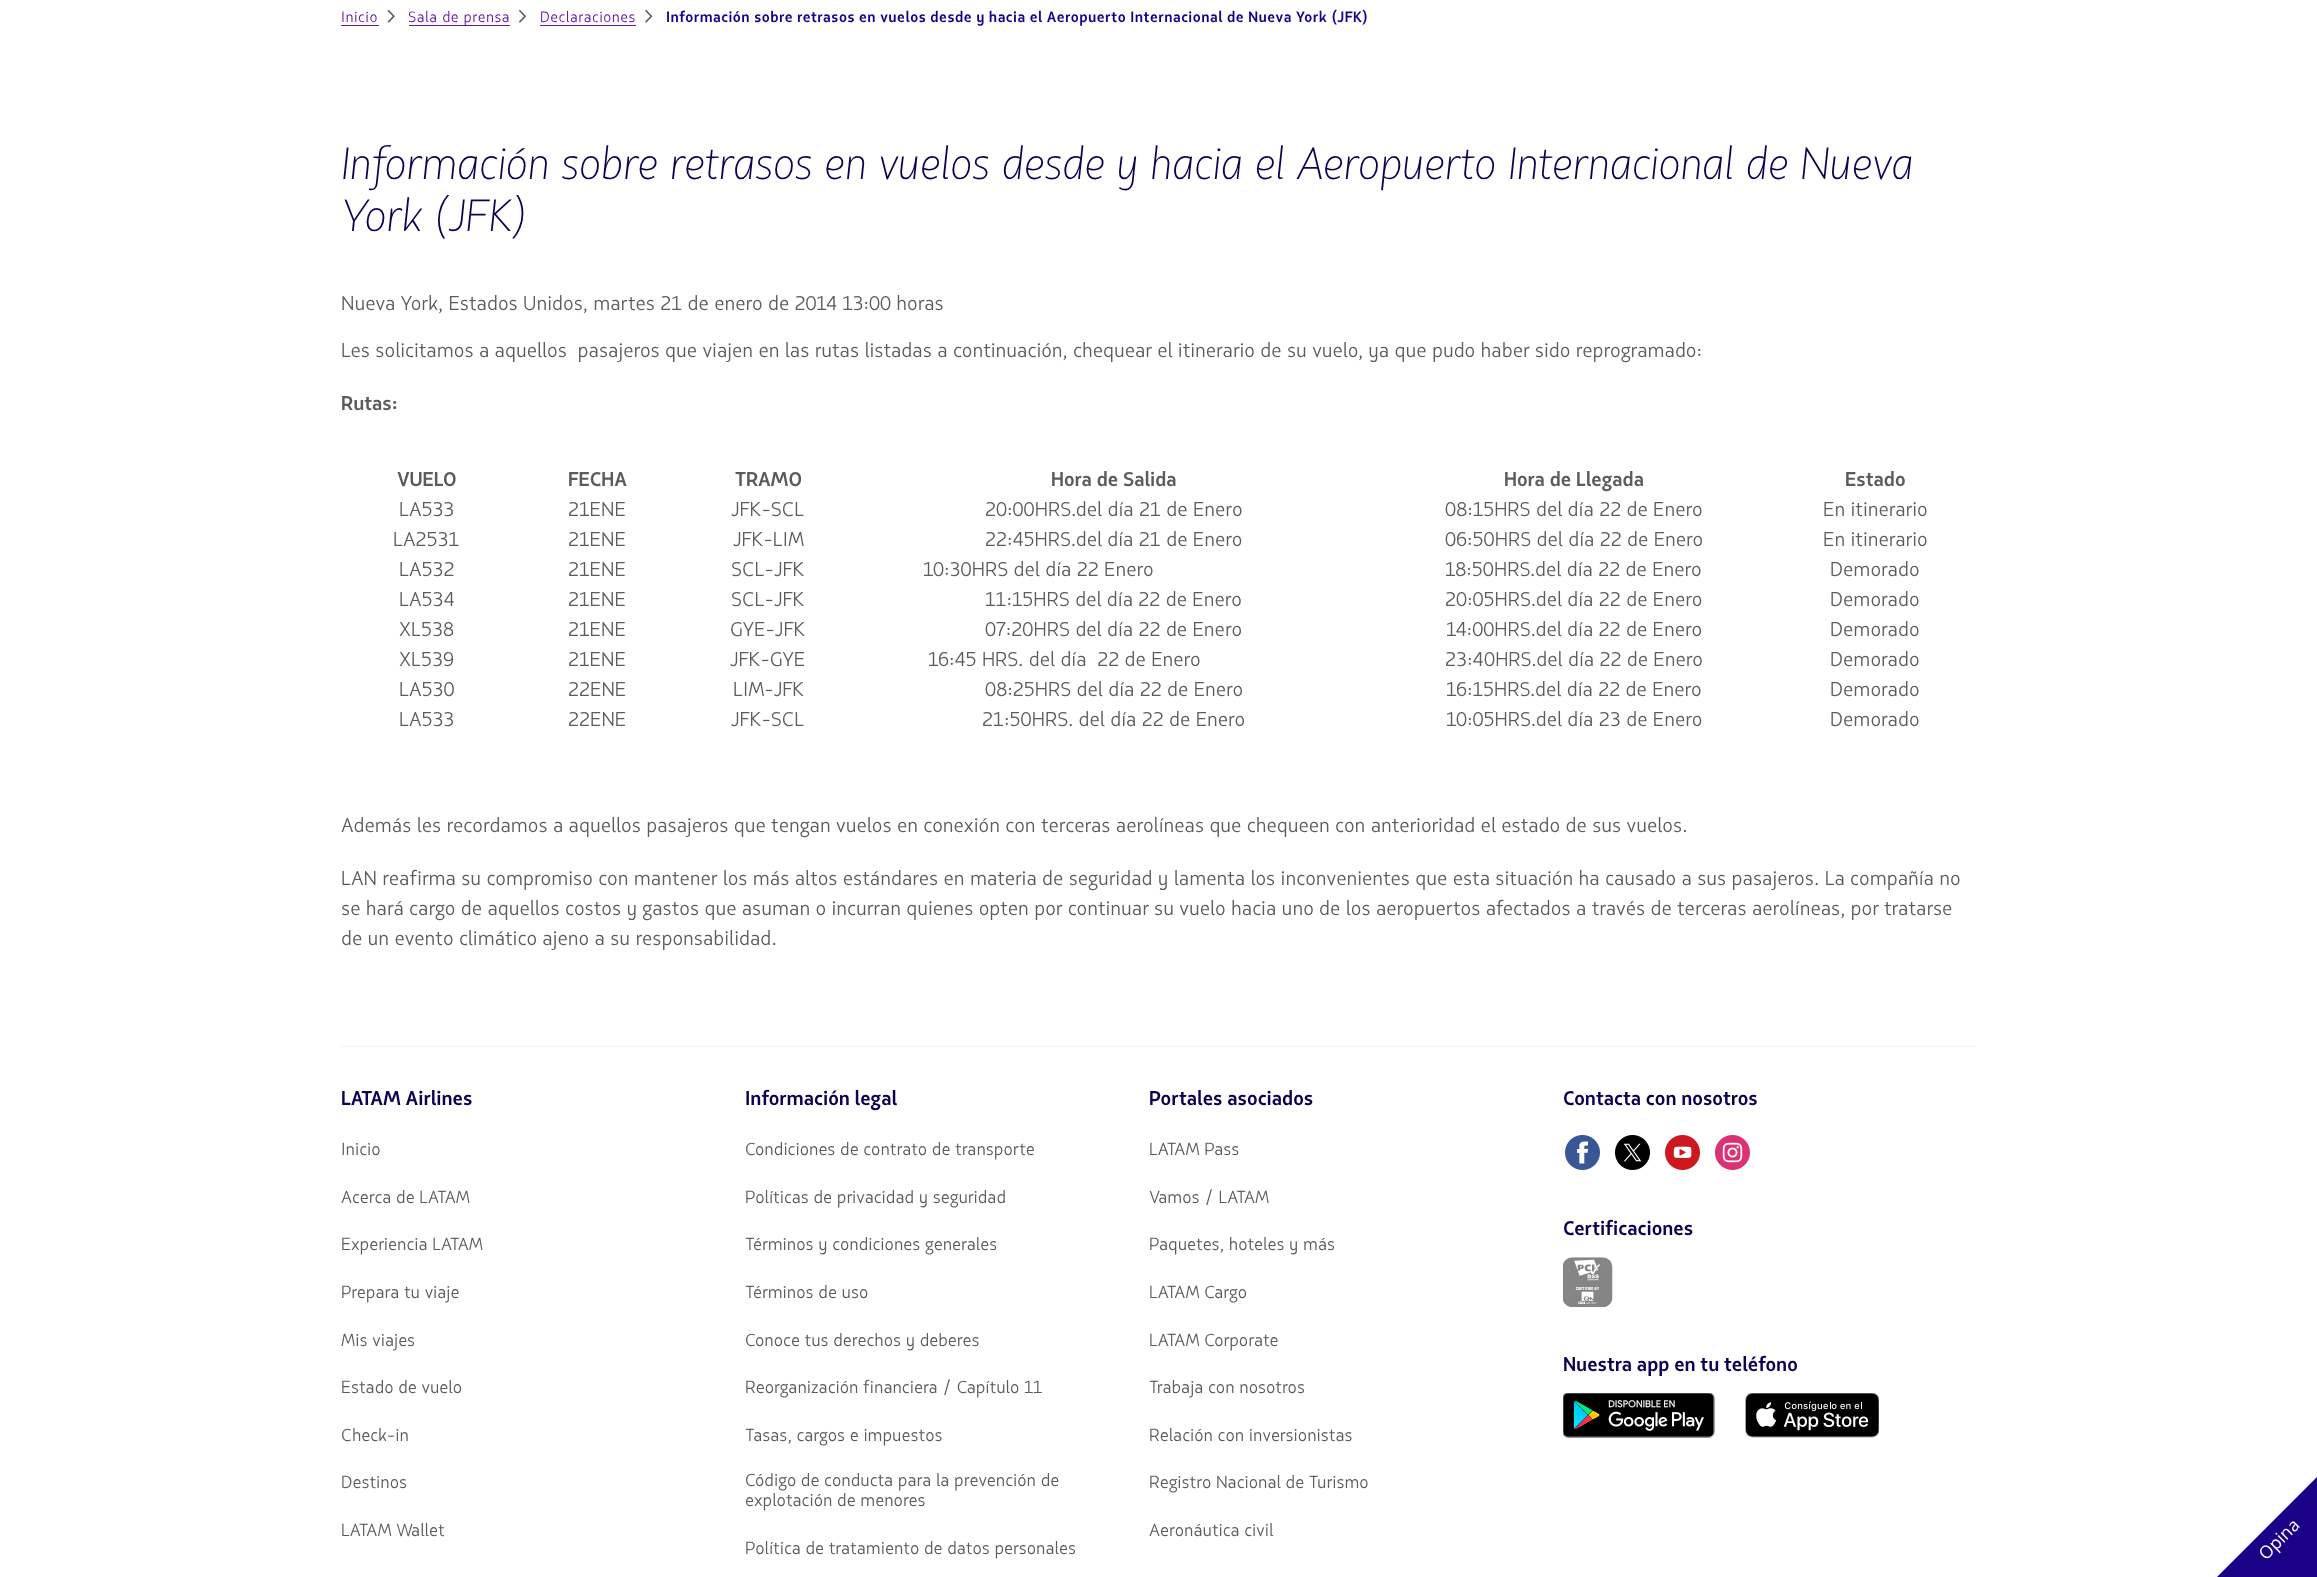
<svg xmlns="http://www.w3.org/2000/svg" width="2317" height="1577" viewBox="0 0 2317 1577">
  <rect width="100%" height="100%" fill="#ffffff"/>
  <text x="341" y="22" font-family="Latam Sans" font-size="15" letter-spacing="0.5" fill="#6617a3">Inicio</text>
  <rect x="341" y="25" width="38" height="1" fill="#6617a3"/>
  <image x="387" y="9" width="8" height="14" href="img1.png"/>
  <rect x="409" y="25" width="101" height="1" fill="#6617a3"/>
  <text x="408" y="22" font-family="Latam Sans" font-size="15" letter-spacing="0.5" fill="#6617a3">Sala de prensa</text>
  <image x="518" y="9" width="9" height="14" href="img2.png"/>
  <text x="540" y="22" font-family="Latam Sans" font-size="15" letter-spacing="0.5" fill="#6617a3">Declaraciones</text>
  <rect x="540" y="25" width="96" height="1" fill="#6617a3"/>
  <image x="645" y="9" width="8" height="14" href="img3.png"/>
  <text x="666" y="22" font-family="Latam Sans" font-size="15" font-weight="bold" letter-spacing="0.5" fill="#1b0088">Información sobre retrasos en vuelos desde y hacia el Aeropuerto Internacional de Nueva York (JFK)</text>
  <text x="341" y="179" font-family="Latam Sans" font-size="45" font-weight="300" font-style="italic" fill="#10004f">Información sobre retrasos en vuelos desde y hacia el Aeropuerto Internacional de Nueva</text>
  <text x="341" y="231" font-family="Latam Sans" font-size="45" font-weight="300" font-style="italic" fill="#10004f">York (JFK)</text>
  <text x="341" y="310" font-family="Latam Sans" font-size="20" fill="#5c5c5c">Nueva York, Estados Unidos, martes 21 de enero de 2014 13:00 horas</text>
  <text x="341" y="357" font-family="Latam Sans" font-size="20" fill="#5c5c5c" xml:space="preserve">Les solicitamos a aquellos  pasajeros que viajen en las rutas listadas a continuación, chequear el itinerario de su vuelo, ya que pudo haber sido reprogramado:</text>
  <text x="341" y="410" font-family="Latam Sans" font-size="20" font-weight="bold" fill="#5c5c5c">Rutas:</text>
  <text x="397" y="486" font-family="Latam Sans" font-size="20" font-weight="bold" fill="#5c5c5c">VUELO</text>
  <text x="568" y="486" font-family="Latam Sans" font-size="20" font-weight="bold" fill="#5c5c5c">FECHA</text>
  <text x="735" y="486" font-family="Latam Sans" font-size="20" font-weight="bold" fill="#5c5c5c">TRAMO</text>
  <text x="1051" y="486" font-family="Latam Sans" font-size="20" font-weight="bold" fill="#5c5c5c">Hora de Salida</text>
  <text x="1504" y="486" font-family="Latam Sans" font-size="20" font-weight="bold" fill="#5c5c5c">Hora de Llegada</text>
  <text x="1845" y="486" font-family="Latam Sans" font-size="20" font-weight="bold" fill="#5c5c5c">Estado</text>
  <text x="399" y="516" font-family="Latam Sans" font-size="20" fill="#5c5c5c">LA533</text>
  <text x="568" y="516" font-family="Latam Sans" font-size="20" fill="#5c5c5c">21ENE</text>
  <text x="731" y="516" font-family="Latam Sans" font-size="20" fill="#5c5c5c">JFK-SCL</text>
  <text x="985" y="516" font-family="Latam Sans" font-size="20" fill="#5c5c5c">20:00HRS.del día 21 de Enero</text>
  <text x="1445" y="516" font-family="Latam Sans" font-size="20" fill="#5c5c5c">08:15HRS del día 22 de Enero</text>
  <text x="1823" y="516" font-family="Latam Sans" font-size="20" fill="#5c5c5c">En itinerario</text>
  <text x="393" y="546" font-family="Latam Sans" font-size="20" fill="#5c5c5c">LA2531</text>
  <text x="568" y="546" font-family="Latam Sans" font-size="20" fill="#5c5c5c">21ENE</text>
  <text x="733" y="546" font-family="Latam Sans" font-size="20" fill="#5c5c5c">JFK-LIM</text>
  <text x="985" y="546" font-family="Latam Sans" font-size="20" fill="#5c5c5c">22:45HRS.del día 21 de Enero</text>
  <text x="1445" y="546" font-family="Latam Sans" font-size="20" fill="#5c5c5c">06:50HRS del día 22 de Enero</text>
  <text x="1823" y="546" font-family="Latam Sans" font-size="20" fill="#5c5c5c">En itinerario</text>
  <text x="399" y="576" font-family="Latam Sans" font-size="20" fill="#5c5c5c">LA532</text>
  <text x="568" y="576" font-family="Latam Sans" font-size="20" fill="#5c5c5c">21ENE</text>
  <text x="731" y="576" font-family="Latam Sans" font-size="20" fill="#5c5c5c">SCL-JFK</text>
  <text x="923" y="576" font-family="Latam Sans" font-size="20" fill="#5c5c5c">10:30HRS del día 22 Enero</text>
  <text x="1445" y="576" font-family="Latam Sans" font-size="20" fill="#5c5c5c">18:50HRS.del día 22 de Enero</text>
  <text x="1830" y="576" font-family="Latam Sans" font-size="20" fill="#5c5c5c">Demorado</text>
  <text x="399" y="606" font-family="Latam Sans" font-size="20" fill="#5c5c5c">LA534</text>
  <text x="568" y="606" font-family="Latam Sans" font-size="20" fill="#5c5c5c">21ENE</text>
  <text x="731" y="606" font-family="Latam Sans" font-size="20" fill="#5c5c5c">SCL-JFK</text>
  <text x="985" y="606" font-family="Latam Sans" font-size="20" fill="#5c5c5c">11:15HRS del día 22 de Enero</text>
  <text x="1445" y="606" font-family="Latam Sans" font-size="20" fill="#5c5c5c">20:05HRS.del día 22 de Enero</text>
  <text x="1830" y="606" font-family="Latam Sans" font-size="20" fill="#5c5c5c">Demorado</text>
  <text x="399" y="636" font-family="Latam Sans" font-size="20" fill="#5c5c5c">XL538</text>
  <text x="568" y="636" font-family="Latam Sans" font-size="20" fill="#5c5c5c">21ENE</text>
  <text x="730" y="636" font-family="Latam Sans" font-size="20" fill="#5c5c5c">GYE-JFK</text>
  <text x="985" y="636" font-family="Latam Sans" font-size="20" fill="#5c5c5c">07:20HRS del día 22 de Enero</text>
  <text x="1446" y="636" font-family="Latam Sans" font-size="20" fill="#5c5c5c">14:00HRS.del día 22 de Enero</text>
  <text x="1830" y="636" font-family="Latam Sans" font-size="20" fill="#5c5c5c">Demorado</text>
  <text x="399" y="666" font-family="Latam Sans" font-size="20" fill="#5c5c5c">XL539</text>
  <text x="568" y="666" font-family="Latam Sans" font-size="20" fill="#5c5c5c">21ENE</text>
  <text x="730" y="666" font-family="Latam Sans" font-size="20" fill="#5c5c5c">JFK-GYE</text>
  <text x="928" y="666" font-family="Latam Sans" font-size="20" fill="#5c5c5c" xml:space="preserve">16:45 HRS. del día  22 de Enero</text>
  <text x="1445" y="666" font-family="Latam Sans" font-size="20" fill="#5c5c5c">23:40HRS.del día 22 de Enero</text>
  <text x="1830" y="666" font-family="Latam Sans" font-size="20" fill="#5c5c5c">Demorado</text>
  <text x="399" y="696" font-family="Latam Sans" font-size="20" fill="#5c5c5c">LA530</text>
  <text x="568" y="696" font-family="Latam Sans" font-size="20" fill="#5c5c5c">22ENE</text>
  <text x="733" y="696" font-family="Latam Sans" font-size="20" fill="#5c5c5c">LIM-JFK</text>
  <text x="985" y="696" font-family="Latam Sans" font-size="20" fill="#5c5c5c">08:25HRS del día 22 de Enero</text>
  <text x="1446" y="696" font-family="Latam Sans" font-size="20" fill="#5c5c5c">16:15HRS.del día 22 de Enero</text>
  <text x="1830" y="696" font-family="Latam Sans" font-size="20" fill="#5c5c5c">Demorado</text>
  <text x="399" y="726" font-family="Latam Sans" font-size="20" fill="#5c5c5c">LA533</text>
  <text x="568" y="726" font-family="Latam Sans" font-size="20" fill="#5c5c5c">22ENE</text>
  <text x="731" y="726" font-family="Latam Sans" font-size="20" fill="#5c5c5c">JFK-SCL</text>
  <text x="982" y="726" font-family="Latam Sans" font-size="20" fill="#5c5c5c">21:50HRS. del día 22 de Enero</text>
  <text x="1446" y="726" font-family="Latam Sans" font-size="20" fill="#5c5c5c">10:05HRS.del día 23 de Enero</text>
  <text x="1830" y="726" font-family="Latam Sans" font-size="20" fill="#5c5c5c">Demorado</text>
  <text x="341" y="832" font-family="Latam Sans" font-size="20" fill="#5c5c5c">Además les recordamos a aquellos pasajeros que tengan vuelos en conexión con terceras aerolíneas que chequeen con anterioridad el estado de sus vuelos.</text>
  <text x="341" y="885" font-family="Latam Sans" font-size="20" fill="#5c5c5c">LAN reafirma su compromiso con mantener los más altos estándares en materia de seguridad y lamenta los inconvenientes que esta situación ha causado a sus pasajeros. La compañía no</text>
  <text x="341" y="915" font-family="Latam Sans" font-size="20" fill="#5c5c5c">se hará cargo de aquellos costos y gastos que asuman o incurran quienes opten por continuar su vuelo hacia uno de los aeropuertos afectados a través de terceras aerolíneas, por tratarse</text>
  <text x="341" y="945" font-family="Latam Sans" font-size="20" fill="#5c5c5c">de un evento climático ajeno a su responsabilidad.</text>
  <rect x="341" y="1046" width="1635" height="1" fill="#f3f2f6"/>
  <text x="341" y="1105" font-family="Latam Sans" font-size="20" font-weight="bold" fill="#10004f">LATAM Airlines</text>
  <text x="341" y="1155" font-family="Latam Sans" font-size="17.5" fill="#5c5c5c">Inicio</text>
  <text x="341" y="1203" font-family="Latam Sans" font-size="17.5" fill="#5c5c5c">Acerca de LATAM</text>
  <text x="341" y="1250" font-family="Latam Sans" font-size="17.5" fill="#5c5c5c">Experiencia LATAM</text>
  <text x="341" y="1298" font-family="Latam Sans" font-size="17.5" fill="#5c5c5c">Prepara tu viaje</text>
  <text x="341" y="1346" font-family="Latam Sans" font-size="17.5" fill="#5c5c5c">Mis viajes</text>
  <text x="341" y="1393" font-family="Latam Sans" font-size="17.5" fill="#5c5c5c">Estado de vuelo</text>
  <text x="341" y="1441" font-family="Latam Sans" font-size="17.5" fill="#5c5c5c">Check-in</text>
  <text x="341" y="1488" font-family="Latam Sans" font-size="17.5" fill="#5c5c5c">Destinos</text>
  <text x="341" y="1536" font-family="Latam Sans" font-size="17.5" fill="#5c5c5c">LATAM Wallet</text>
  <text x="745" y="1105" font-family="Latam Sans" font-size="20" font-weight="bold" fill="#10004f">Información legal</text>
  <text x="745" y="1155" font-family="Latam Sans" font-size="17.5" fill="#5c5c5c">Condiciones de contrato de transporte</text>
  <text x="745" y="1203" font-family="Latam Sans" font-size="17.5" fill="#5c5c5c">Políticas de privacidad y seguridad</text>
  <text x="745" y="1250" font-family="Latam Sans" font-size="17.5" fill="#5c5c5c">Términos y condiciones generales</text>
  <text x="745" y="1298" font-family="Latam Sans" font-size="17.5" fill="#5c5c5c">Términos de uso</text>
  <text x="745" y="1346" font-family="Latam Sans" font-size="17.5" fill="#5c5c5c">Conoce tus derechos y deberes</text>
  <text x="745" y="1393" font-family="Latam Sans" font-size="17.5" fill="#5c5c5c">Reorganización financiera / Capítulo 11</text>
  <text x="745" y="1441" font-family="Latam Sans" font-size="17.5" fill="#5c5c5c">Tasas, cargos e impuestos</text>
  <text x="745" y="1486" font-family="Latam Sans" font-size="17.5" fill="#5c5c5c">Código de conducta para la prevención de</text>
  <text x="745" y="1506" font-family="Latam Sans" font-size="17.5" fill="#5c5c5c">explotación de menores</text>
  <text x="745" y="1554" font-family="Latam Sans" font-size="17.5" fill="#5c5c5c">Política de tratamiento de datos personales</text>
  <text x="1149" y="1105" font-family="Latam Sans" font-size="20" font-weight="bold" fill="#10004f">Portales asociados</text>
  <text x="1149" y="1155" font-family="Latam Sans" font-size="17.5" fill="#5c5c5c">LATAM Pass</text>
  <text x="1149" y="1203" font-family="Latam Sans" font-size="17.5" fill="#5c5c5c">Vamos / LATAM</text>
  <text x="1149" y="1250" font-family="Latam Sans" font-size="17.5" fill="#5c5c5c">Paquetes, hoteles y más</text>
  <text x="1149" y="1298" font-family="Latam Sans" font-size="17.5" fill="#5c5c5c">LATAM Cargo</text>
  <text x="1149" y="1346" font-family="Latam Sans" font-size="17.5" fill="#5c5c5c">LATAM Corporate</text>
  <text x="1149" y="1393" font-family="Latam Sans" font-size="17.5" fill="#5c5c5c">Trabaja con nosotros</text>
  <text x="1149" y="1441" font-family="Latam Sans" font-size="17.5" fill="#5c5c5c">Relación con inversionistas</text>
  <text x="1149" y="1488" font-family="Latam Sans" font-size="17.5" fill="#5c5c5c">Registro Nacional de Turismo</text>
  <text x="1149" y="1536" font-family="Latam Sans" font-size="17.5" fill="#5c5c5c">Aeronáutica civil</text>
  <text x="1563" y="1105" font-family="Latam Sans" font-size="20" font-weight="bold" fill="#10004f">Contacta con nosotros</text>
  <image x="1565" y="1135" width="35" height="35" href="img4.png"/>
  <image x="1615" y="1135" width="35" height="35" href="img5.png"/>
  <image x="1665" y="1135" width="35" height="35" href="img6.png"/>
  <image x="1715" y="1135" width="35" height="35" href="img7.png"/>
  <text x="1563" y="1235" font-family="Latam Sans" font-size="20" font-weight="bold" fill="#10004f">Certificaciones</text>
  <image x="1563" y="1257" width="50" height="50" href="img8.png"/>
  <text x="1563" y="1371" font-family="Latam Sans" font-size="20" font-weight="bold" fill="#10004f">Nuestra app en tu teléfono</text>
  <image x="1563" y="1393" width="152" height="45" href="img9.png"/>
  <image x="1745" y="1393" width="134" height="45" href="img10.png"/>
  <path d="M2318 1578H2216L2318 1476Z" fill="#1b0088"/>
  <text x="2266" y="1561" transform="rotate(-45 2266 1561)" font-family="Open Sans" font-size="17.5" fill="#ffffff">Opina</text>
</svg>
